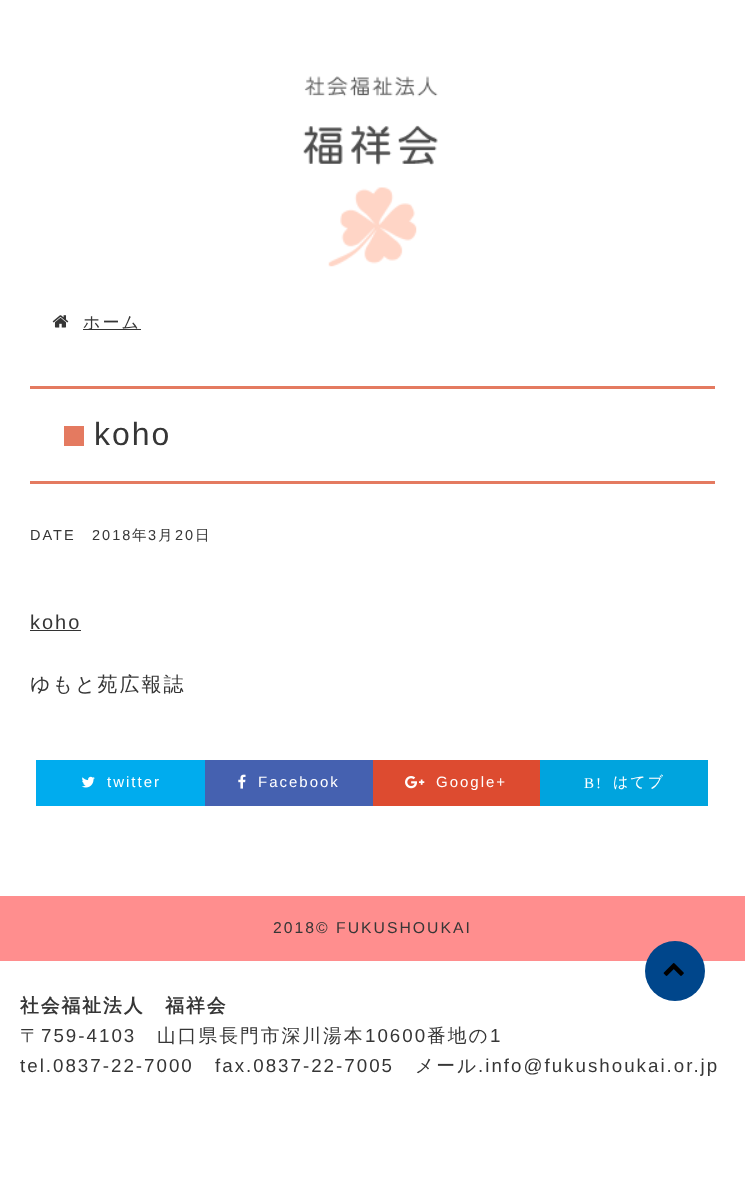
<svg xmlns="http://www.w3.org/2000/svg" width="745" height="1189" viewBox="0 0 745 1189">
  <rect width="100%" height="100%" fill="#ffffff"/>
  <image x="303" y="76" width="135" height="90" href="img1.png"/>
  <image x="328" y="187" width="89" height="80" href="img2.png"/>
  <image x="52" y="315" width="17" height="13" href="img3.png"/>
  <rect x="83" y="329" width="58" height="1" fill="#333333"/>
  <text x="83" y="328" font-family="WenQuanYi Zen Hei" font-size="17" font-weight="500" letter-spacing="2" fill="#363636">ホーム</text>
  <rect x="30" y="386" width="685" height="3" fill="#e47a60"/>
  <rect x="30" y="481" width="685" height="3" fill="#e47a60"/>
  <rect x="64" y="426" width="20" height="20" fill="#e47a60"/>
  <text x="94" y="445" font-family="Liberation Sans" font-size="32" letter-spacing="2" fill="#363636">koho</text>
  <text x="30" y="540" font-family="Liberation Sans" font-size="14.5" letter-spacing="2" fill="#363636">DATE</text>
  <text x="92" y="540" font-family="Liberation Sans" font-size="14.5" letter-spacing="2" fill="#363636">2018</text>
  <text x="132" y="540" font-family="WenQuanYi Zen Hei" font-size="14.5" font-weight="500" letter-spacing="2" fill="#363636">年</text>
  <text x="148" y="540" font-family="Liberation Sans" font-size="14.5" letter-spacing="2" fill="#363636">3</text>
  <text x="158" y="540" font-family="WenQuanYi Zen Hei" font-size="14.5" font-weight="500" letter-spacing="2" fill="#363636">月</text>
  <text x="175" y="540" font-family="Liberation Sans" font-size="14.5" letter-spacing="2" fill="#363636">20</text>
  <text x="195" y="540" font-family="WenQuanYi Zen Hei" font-size="14.5" font-weight="500" letter-spacing="2" fill="#363636">日</text>
  <text x="30" y="629" font-family="Liberation Sans" font-size="20" letter-spacing="2" fill="#363636">koho</text>
  <rect x="30" y="630" width="51" height="1" fill="#333333"/>
  <text x="30" y="691" font-family="WenQuanYi Zen Hei" font-size="20" font-weight="500" letter-spacing="2" fill="#363636">ゆもと苑広報誌</text>
  <rect x="36" y="760" width="169" height="46" fill="#00acee"/>
  <image x="81" y="776" width="14" height="12" href="img4.png"/>
  <text x="107" y="787" font-family="Liberation Sans" font-size="15" letter-spacing="2" fill="#ffffff">twitter</text>
  <rect x="205" y="760" width="168" height="46" fill="#4561b0"/>
  <image x="238" y="774" width="8" height="15" href="img5.png"/>
  <text x="258" y="787" font-family="Liberation Sans" font-size="15" letter-spacing="2" fill="#ffffff">Facebook</text>
  <rect x="373" y="760" width="167" height="46" fill="#dd4b30"/>
  <image x="405" y="776" width="20" height="13" href="img6.png"/>
  <text x="436" y="787" font-family="Liberation Sans" font-size="15" letter-spacing="2" fill="#ffffff">Google+</text>
  <rect x="540" y="760" width="168" height="46" fill="#00a4de"/>
  <text x="584" y="788" font-family="Liberation Serif" font-size="15" letter-spacing="2" fill="#ffffff">B!</text>
  <text x="613" y="787" font-family="WenQuanYi Zen Hei" font-size="15" font-weight="500" letter-spacing="2" fill="#ffffff">はてブ</text>
  <rect x="0" y="896" width="745" height="65" fill="#ff8e8e"/>
  <text x="273" y="933" font-family="Liberation Sans" font-size="15.75" letter-spacing="2" fill="#363636">2018© FUKUSHOUKAI</text>
  <circle cx="675" cy="971" r="30" fill="#00468b"/>
  <image x="663" y="963" width="21" height="13" href="img7.png"/>
  <text x="20" y="1012" font-family="WenQuanYi Zen Hei" font-size="18.75" font-weight="bold" letter-spacing="2" fill="#363636">社会福祉法人　福祥会</text>
  <text x="20" y="1042" font-family="WenQuanYi Zen Hei" font-size="18.75" font-weight="500" letter-spacing="2" fill="#363636">〒</text>
  <text x="41" y="1042" font-family="Liberation Sans" font-size="18.75" letter-spacing="2" fill="#363636">759-4103</text>
  <text x="157" y="1042" font-family="WenQuanYi Zen Hei" font-size="18.75" font-weight="500" letter-spacing="2" fill="#363636">山口県長門市深川湯本</text>
  <text x="365" y="1042" font-family="Liberation Sans" font-size="18.75" letter-spacing="2" fill="#363636">10600</text>
  <text x="427" y="1042" font-family="WenQuanYi Zen Hei" font-size="18.75" font-weight="500" letter-spacing="2" fill="#363636">番地の</text>
  <text x="490" y="1042" font-family="Liberation Sans" font-size="18.75" letter-spacing="2" fill="#363636">1</text>
  <text x="20" y="1072" font-family="Liberation Sans" font-size="18.75" letter-spacing="2" fill="#363636">tel.0837-22-7000</text>
  <text x="215" y="1072" font-family="Liberation Sans" font-size="18.75" letter-spacing="2" fill="#363636">fax.0837-22-7005</text>
  <text x="415" y="1072" font-family="WenQuanYi Zen Hei" font-size="18.75" font-weight="500" letter-spacing="2" fill="#363636">メール</text>
  <text x="478" y="1072" font-family="Liberation Sans" font-size="18.75" letter-spacing="2" fill="#363636">.info@fukushoukai.or.jp</text>
</svg>
